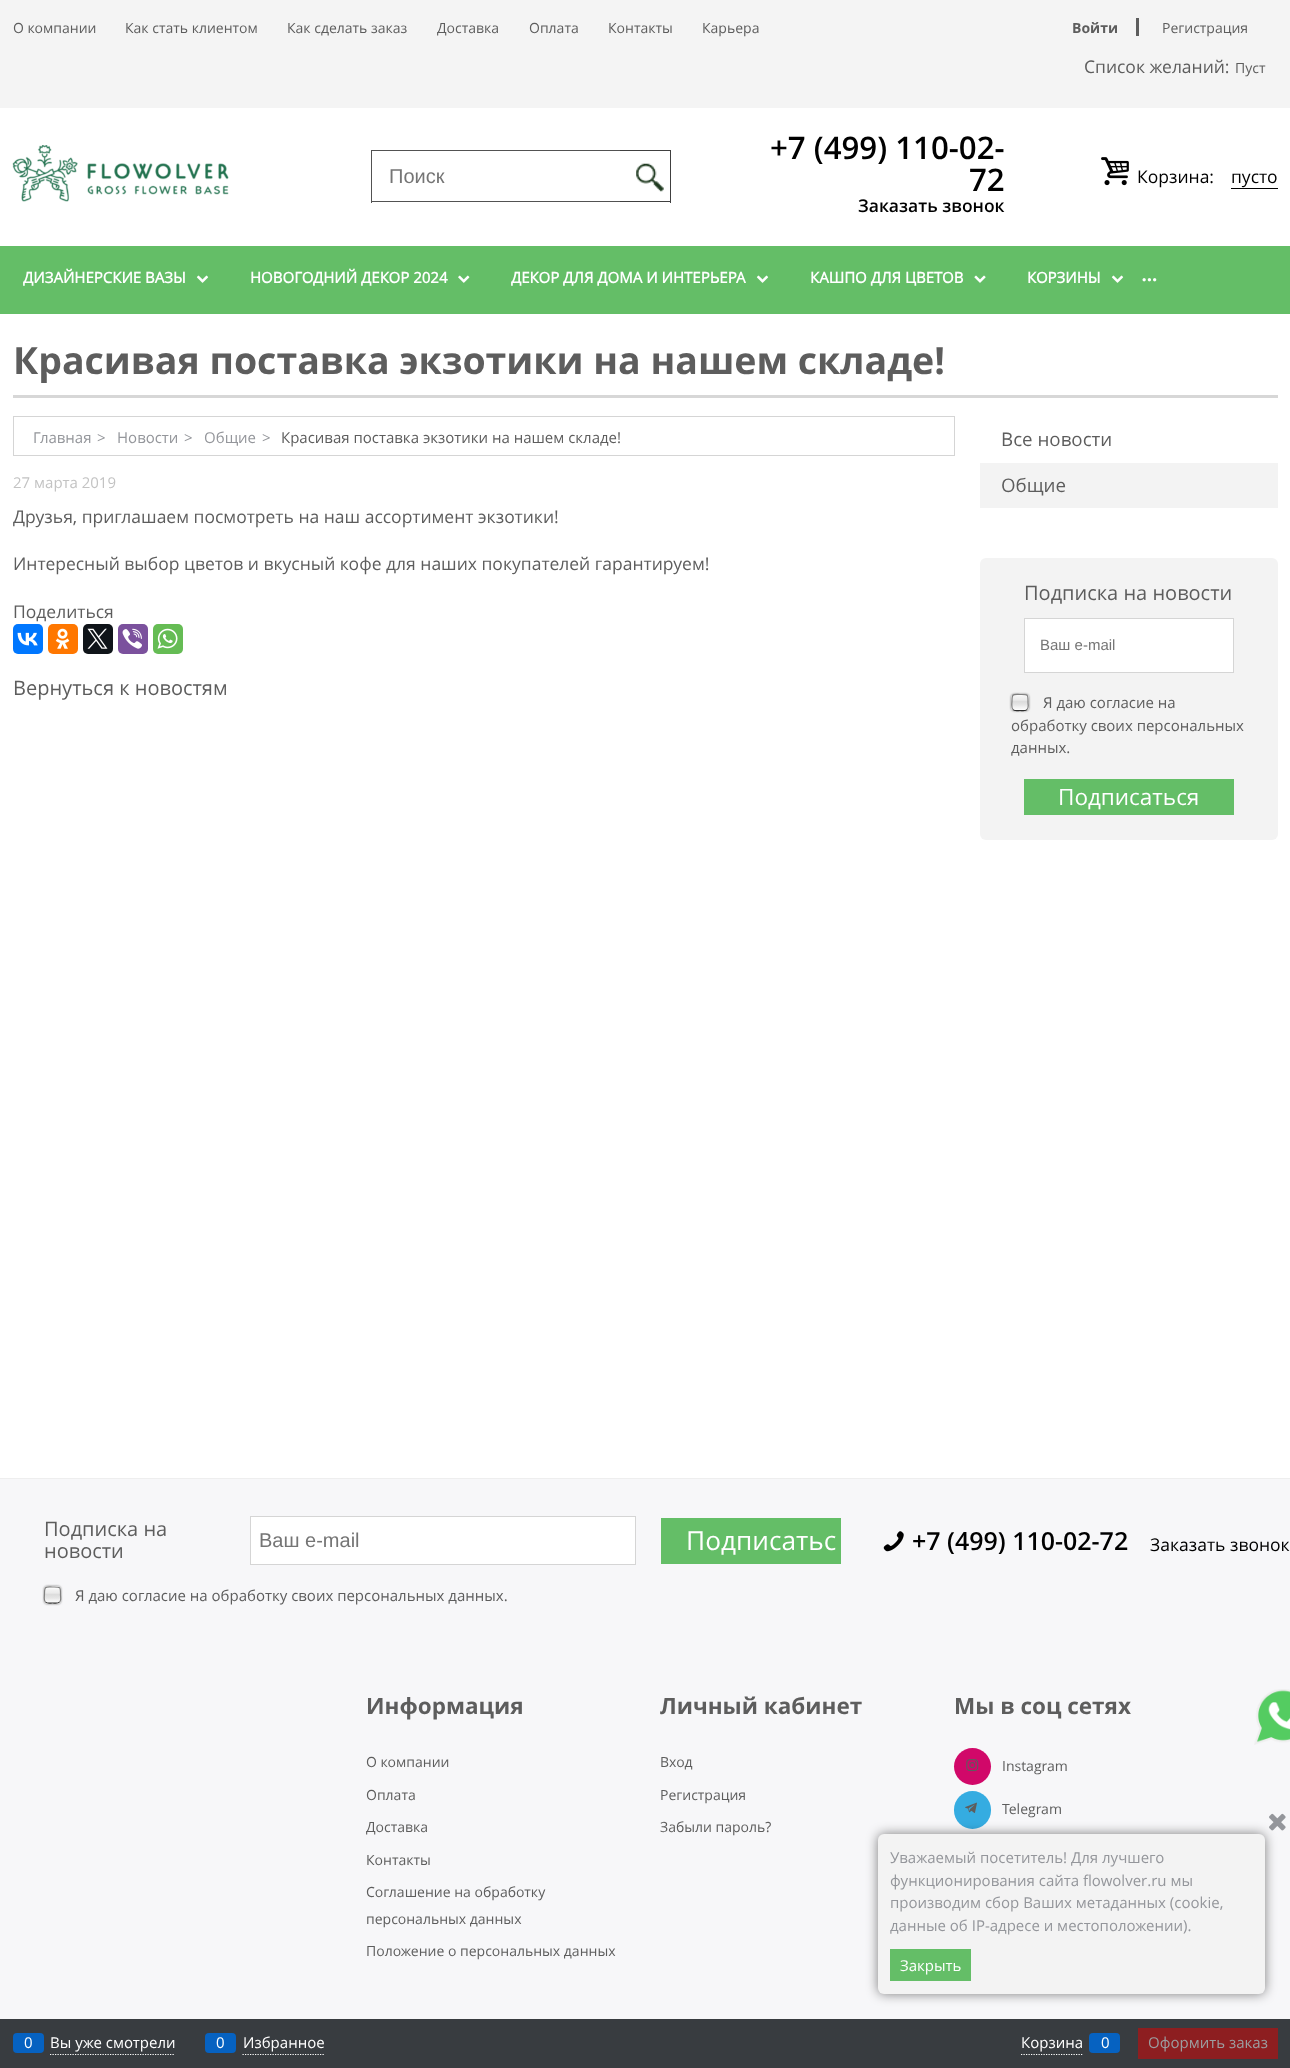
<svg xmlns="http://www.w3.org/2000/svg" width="1290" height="2068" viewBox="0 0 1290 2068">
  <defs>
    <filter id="blur1" x="-50%" y="-200%" width="200%" height="500%"><feGaussianBlur stdDeviation="1"/></filter>
    <clipPath id="clip1"><rect x="1011" y="694" width="18" height="17" rx="4"/></clipPath>
    <linearGradient id="g1" gradientUnits="userSpaceOnUse" x1="1020" y1="695" x2="1020" y2="710"><stop offset="0" stop-color="#fdfdfd"/><stop offset="0.11" stop-color="#f3f3f3"/><stop offset="0.33" stop-color="#ebebeb"/><stop offset="0.44" stop-color="#dcdcdc"/><stop offset="0.67" stop-color="#e6e6e6"/><stop offset="0.78" stop-color="#f0f0f0"/><stop offset="0.89" stop-color="#f6f6f6"/><stop offset="1" stop-color="#ffffff"/></linearGradient>
    <clipPath id="clip2"><rect x="44" y="1586" width="17" height="18" rx="4"/></clipPath>
    <linearGradient id="g2" gradientUnits="userSpaceOnUse" x1="53" y1="1573" x2="53" y2="1588"><stop offset="0" stop-color="#fdfdfd"/><stop offset="0.11" stop-color="#f3f3f3"/><stop offset="0.33" stop-color="#ebebeb"/><stop offset="0.44" stop-color="#dcdcdc"/><stop offset="0.67" stop-color="#e6e6e6"/><stop offset="0.78" stop-color="#f0f0f0"/><stop offset="0.89" stop-color="#f6f6f6"/><stop offset="1" stop-color="#ffffff"/></linearGradient>
    <linearGradient id="g3" gradientUnits="userSpaceOnUse" x1="53" y1="1588" x2="53" y2="1603"><stop offset="0" stop-color="#fdfdfd"/><stop offset="0.11" stop-color="#f3f3f3"/><stop offset="0.33" stop-color="#ebebeb"/><stop offset="0.44" stop-color="#dcdcdc"/><stop offset="0.67" stop-color="#e6e6e6"/><stop offset="0.78" stop-color="#f0f0f0"/><stop offset="0.89" stop-color="#f6f6f6"/><stop offset="1" stop-color="#ffffff"/></linearGradient>
    <linearGradient id="g4" gradientUnits="userSpaceOnUse" x1="53" y1="1603" x2="53" y2="1618"><stop offset="0" stop-color="#fdfdfd"/><stop offset="0.11" stop-color="#f3f3f3"/><stop offset="0.33" stop-color="#ebebeb"/><stop offset="0.44" stop-color="#dcdcdc"/><stop offset="0.67" stop-color="#e6e6e6"/><stop offset="0.78" stop-color="#f0f0f0"/><stop offset="0.89" stop-color="#f6f6f6"/><stop offset="1" stop-color="#ffffff"/></linearGradient>
    <filter id="blur2" x="-50%" y="-200%" width="200%" height="500%"><feGaussianBlur stdDeviation="6"/></filter>
  </defs>
  <rect width="100%" height="100%" fill="#ffffff"/>
  <rect x="0" y="0" width="1290" height="108" fill="#f4f4f4"/>
  <text x="13" y="33" font-family="Open Sans" font-size="14" fill="#5d5d5d">О компании</text>
  <text x="125" y="33" font-family="Open Sans" font-size="14" fill="#5d5d5d">Как стать клиентом</text>
  <text x="287" y="33" font-family="Open Sans" font-size="14" fill="#5d5d5d">Как сделать заказ</text>
  <text x="437" y="33" font-family="Open Sans" font-size="14" fill="#5d5d5d">Доставка</text>
  <text x="529" y="33" font-family="Open Sans" font-size="14" fill="#5d5d5d">Оплата</text>
  <text x="608" y="33" font-family="Open Sans" font-size="14" fill="#5d5d5d">Контакты</text>
  <text x="702" y="33" font-family="Open Sans" font-size="14" fill="#5d5d5d">Карьера</text>
  <text x="1072" y="33" font-family="Open Sans" font-size="14" font-weight="bold" fill="#5d5d5d">Войти</text>
  <rect x="1136" y="18" width="3" height="18" fill="#5d5d5d"/>
  <text x="1162" y="33" font-family="Open Sans" font-size="14" fill="#5d5d5d">Регистрация</text>
  <text x="1084" y="73" font-family="Open Sans" font-size="17.5" fill="#5d5d5d">Список желаний:</text>
  <text x="1235" y="73" font-family="Open Sans" font-size="14" fill="#5d5d5d">Пуст</text>
  <image x="12" y="145" width="217" height="57" href="img1.png"/>
  <rect x="371" y="150" width="249" height="1" fill="#525252"/>
  <rect x="371" y="201" width="249" height="1" fill="#525252"/>
  <rect x="371" y="150" width="1" height="53" fill="#525252"/>
  <text x="389" y="183" font-family="Liberation Sans" font-size="20" fill="#757575">Поиск</text>
  <image x="636" y="163" width="28" height="29" href="img2.png"/>
  <rect x="620" y="150" width="51" height="1" fill="#404040"/>
  <rect x="670" y="150" width="1" height="53" fill="#404040"/>
  <rect x="620" y="201" width="51" height="1" fill="#404040"/>
  <text x="770" y="159" font-family="Open Sans" font-size="31.25" font-weight="600" fill="#000000">+7 (499) 110-02-</text>
  <text x="969" y="191" font-family="Open Sans" font-size="31.25" font-weight="600" fill="#000000">72</text>
  <text x="858" y="212" font-family="Open Sans" font-size="17.5" font-weight="600" fill="#000000">Заказать звонок</text>
  <image x="1101" y="157" width="28" height="29" href="img3.png"/>
  <text x="1137" y="183" font-family="Open Sans" font-size="17.5" fill="#000000">Корзина:</text>
  <text x="1231" y="183" font-family="Open Sans" font-size="17.5" fill="#000000">пусто</text>
  <rect x="1231" y="188" width="47" height="1" fill="#000000"/>
  <rect x="0" y="246" width="1290" height="68" fill="#64be67"/>
  <text x="23" y="283" font-family="'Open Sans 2'" font-size="15" font-weight="bold" fill="#ffffff">ДИЗАЙНЕРСКИЕ ВАЗЫ</text>
  <image x="196" y="275" width="13" height="8" href="img4.png"/>
  <text x="250" y="283" font-family="'Open Sans 2'" font-size="15" font-weight="bold" fill="#ffffff">НОВОГОДНИЙ ДЕКОР 2024</text>
  <image x="458" y="275" width="12" height="8" href="img5.png"/>
  <text x="511" y="283" font-family="'Open Sans 2'" font-size="15" font-weight="bold" fill="#ffffff">ДЕКОР ДЛЯ ДОМА И ИНТЕРЬЕРА</text>
  <image x="756" y="275" width="13" height="8" href="img4.png"/>
  <text x="810" y="283" font-family="'Open Sans 2'" font-size="15" font-weight="bold" fill="#ffffff">КАШПО ДЛЯ ЦВЕТОВ</text>
  <image x="974" y="275" width="12" height="8" href="img6.png"/>
  <text x="1027" y="283" font-family="'Open Sans 2'" font-size="15" font-weight="bold" fill="#ffffff">КОРЗИНЫ</text>
  <image x="1111" y="275" width="13" height="8" href="img4.png"/>
  <image x="1142" y="278" width="15" height="4" href="img7.png"/>
  <rect x="13" y="395" width="1265" height="3" fill="#d7d7d7"/>
  <text x="13" y="374" font-family="Open Sans" font-size="37.5" font-weight="bold" fill="#5d5d5d">Красивая поставка экзотики на нашем складе!</text>
  <rect x="13.5" y="416.5" width="941" height="39" fill="none" stroke="#d5d5d5"/>
  <text x="33" y="443" font-family="Open Sans" font-size="15" fill="#94969b">Главная</text>
  <text x="97" y="443" font-family="Open Sans" font-size="15" fill="#94969b">&gt;</text>
  <text x="117" y="443" font-family="Open Sans" font-size="15" fill="#94969b">Новости</text>
  <text x="184" y="443" font-family="Open Sans" font-size="15" fill="#94969b">&gt;</text>
  <text x="204" y="443" font-family="Open Sans" font-size="15" fill="#94969b">Общие</text>
  <text x="262" y="443" font-family="Open Sans" font-size="15" fill="#94969b">&gt;</text>
  <text x="281" y="443" font-family="Open Sans" font-size="15" fill="#5d5d5d">Красивая поставка экзотики на нашем складе!</text>
  <text x="13" y="488" font-family="Open Sans" font-size="15" fill="#c3c3c3">27 марта 2019</text>
  <text x="13" y="523" font-family="Open Sans" font-size="17.5" fill="#5d5d5d">Друзья, приглашаем посмотреть на наш ассортимент экзотики!</text>
  <text x="13" y="570" font-family="Open Sans" font-size="17.5" fill="#5d5d5d">Интересный выбор цветов и вкусный кофе для наших покупателей гарантируем!</text>
  <text x="13" y="618" font-family="Open Sans" font-size="17.5" fill="#5d5d5d">Поделиться</text>
  <rect x="13" y="624" width="30" height="30" rx="5" fill="#0077ff"/>
  <image x="17" y="632" width="21" height="14" href="img8.png"/>
  <rect x="48" y="624" width="30" height="30" rx="5" fill="#ff7700"/>
  <image x="55" y="628" width="15" height="21" href="img9.png"/>
  <rect x="83" y="624" width="30" height="30" rx="5" fill="#0f1419"/>
  <image x="87" y="628" width="21" height="21" href="img10.png"/>
  <rect x="118" y="624" width="30" height="30" rx="5" fill="#7b519d"/>
  <image x="122" y="628" width="20" height="21" href="img11.png"/>
  <rect x="153" y="624" width="30" height="30" rx="5" fill="#65bc54"/>
  <image x="157" y="628" width="21" height="21" href="img12.png"/>
  <text x="13" y="695" font-family="Open Sans" font-size="20" fill="#5d5d5d">Вернуться к новостям</text>
  <text x="1001" y="446" font-family="Open Sans" font-size="18.75" fill="#5d5d5d">Все новости</text>
  <rect x="980" y="463" width="298" height="45" fill="#f3f3f3"/>
  <text x="1001" y="492" font-family="Open Sans" font-size="18.75" fill="#5d5d5d">Общие</text>
  <rect x="980" y="558" width="298" height="282" rx="6" fill="#f3f3f3"/>
  <text x="1024" y="600" font-family="Open Sans" font-size="20" fill="#5d5d5d">Подписка на новости</text>
  <rect x="1024.5" y="618.5" width="209" height="54" fill="#ffffff" stroke="#d5d5d5"/>
  <text x="1040" y="650" font-family="Liberation Sans" font-size="15" fill="#757575">Ваш e-mail</text>
  <rect x="1011" y="694" width="18" height="17" rx="4" fill="#818181" filter="url(#blur1)"/>
  <g clip-path="url(#clip1)">
    <rect x="1011" y="695" width="18" height="15" fill="url(#g1)"/>
  </g>
  <path d="M1027 709.5C1025.5 711.5 1022 710.5 1020 710.5C1018 710.5 1014.5 711.5 1013 709.5" fill="none" stroke="#2d2d2d" stroke-width="1.2"/>
  <path d="M1013 709.5C1011 708 1012 703 1012 701C1012 693.5 1013 694.5 1020 694.5C1028.5 694.5 1028 694 1028 702.5C1028 704.5 1029 708 1027 709.5" fill="none" stroke="#818181" stroke-width="1.2"/>
  <text x="1043" y="708" font-family="Open Sans" font-size="15" fill="#5d5d5d">Я даю согласие на</text>
  <text x="1011" y="731" font-family="Open Sans" font-size="15" fill="#5d5d5d">обработку своих персональных</text>
  <text x="1011" y="753" font-family="Open Sans" font-size="15" fill="#5d5d5d">данных.</text>
  <rect x="1024" y="779" width="210" height="36" fill="#64be67"/>
  <text x="1058" y="805" font-family="Open Sans" font-size="22.5" fill="#ffffff">Подписаться</text>
  <rect x="0" y="1479" width="1290" height="540" fill="#f7f7f9"/>
  <rect x="0" y="1478" width="1290" height="1" fill="#eeeeee"/>
  <text x="44" y="1536" font-family="Open Sans" font-size="20" fill="#5d5d5d">Подписка на</text>
  <text x="44" y="1558" font-family="Open Sans" font-size="20" fill="#5d5d5d">новости</text>
  <rect x="250.5" y="1516.5" width="385" height="48" fill="#ffffff" stroke="#d5d5d5"/>
  <text x="259" y="1547" font-family="Liberation Sans" font-size="20" fill="#757575">Ваш e-mail</text>
  <rect x="661" y="1518" width="180" height="46" fill="#64be67"/>
  <text x="686" y="1550" font-family="Open Sans" font-size="26.25" fill="#ffffff">Подписатьс</text>
  <rect x="44" y="1586" width="17" height="18" rx="4" fill="#818181" filter="url(#blur1)"/>
  <g clip-path="url(#clip2)">
    <rect x="44" y="1586" width="17" height="2" fill="url(#g2)"/>
    <rect x="44" y="1588" width="17" height="15" fill="url(#g3)"/>
    <rect x="44" y="1603" width="17" height="1" fill="url(#g4)"/>
  </g>
  <path d="M59.5 1602C58 1604 54.5 1603 52.5 1603C50.5 1603 47 1604 45.5 1602" fill="none" stroke="#2d2d2d" stroke-width="1.2"/>
  <path d="M45.5 1602C43.5 1600.5 44.5 1595.5 44.5 1593.5C44.5 1586 45.5 1587 52.5 1587C61 1587 60.5 1586.5 60.5 1595C60.5 1597 61.5 1600.5 59.5 1602" fill="none" stroke="#818181" stroke-width="1.2"/>
  <text x="75" y="1601" font-family="Open Sans" font-size="15" fill="#5d5d5d">Я даю согласие на обработку своих персональных данных.</text>
  <image x="883" y="1531" width="21" height="21" href="img13.png"/>
  <text x="912" y="1550" font-family="Open Sans" font-size="25" font-weight="600" fill="#000000">+7 (499) 110-02-72</text>
  <text x="1150" y="1551" font-family="Open Sans" font-size="17.5" fill="#000000">Заказать звонок</text>
  <text x="366" y="1714" font-family="Open Sans" font-size="22.5" font-weight="bold" fill="#5d5d5d">Информация</text>
  <text x="366" y="1767" font-family="Open Sans" font-size="14" fill="#5d5d5d">О компании</text>
  <text x="366" y="1800" font-family="Open Sans" font-size="14" fill="#5d5d5d">Оплата</text>
  <text x="366" y="1832" font-family="Open Sans" font-size="14" fill="#5d5d5d">Доставка</text>
  <text x="366" y="1865" font-family="Open Sans" font-size="14" fill="#5d5d5d">Контакты</text>
  <text x="366" y="1897" font-family="Open Sans" font-size="14" fill="#5d5d5d">Соглашение на обработку</text>
  <text x="366" y="1924" font-family="Open Sans" font-size="14" fill="#5d5d5d">персональных данных</text>
  <text x="366" y="1956" font-family="Open Sans" font-size="14" fill="#5d5d5d">Положение о персональных данных</text>
  <text x="660" y="1714" font-family="Open Sans" font-size="22.5" font-weight="bold" fill="#5d5d5d">Личный кабинет</text>
  <text x="660" y="1767" font-family="Open Sans" font-size="14" fill="#5d5d5d">Вход</text>
  <text x="660" y="1800" font-family="Open Sans" font-size="14" fill="#5d5d5d">Регистрация</text>
  <text x="660" y="1832" font-family="Open Sans" font-size="14" fill="#5d5d5d">Забыли пароль?</text>
  <text x="954" y="1714" font-family="Open Sans" font-size="22.5" font-weight="bold" fill="#5d5d5d">Мы в соц сетях</text>
  <circle cx="972.5" cy="1766.5" r="18.5" fill="#d10869"/>
  <image x="966" y="1759" width="13" height="13" href="img14.png"/>
  <text x="1002" y="1771" font-family="Open Sans" font-size="14" fill="#5d5d5d">Instagram</text>
  <rect x="954" y="1791" width="37" height="38" rx="18.5" fill="#35ace1"/>
  <image x="965" y="1802" width="12" height="11" href="img15.png"/>
  <text x="1002" y="1814" font-family="Open Sans" font-size="14" fill="#5d5d5d">Telegram</text>
  <image x="1254" y="1689" width="36" height="56" href="img16.png"/>
  <rect x="0" y="2019" width="1290" height="49" fill="#383c40"/>
  <path d="M50 2054.5H175" fill="none" stroke="#ffffff" stroke-width="1.2" stroke-dasharray="1.25 1.25"/>
  <rect x="13" y="2033" width="31" height="20" rx="4" fill="#0662c1"/>
  <text x="24" y="2048" font-family="Open Sans" font-size="15" fill="#ffffff">0</text>
  <text x="50" y="2048" font-family="Open Sans" font-size="15" fill="#ffffff">Вы уже смотрели</text>
  <path d="M242.5 2054.5H324" fill="none" stroke="#ffffff" stroke-width="1.2" stroke-dasharray="1.25 1.25"/>
  <rect x="205" y="2033" width="31" height="20" rx="4" fill="#0662c1"/>
  <text x="216" y="2048" font-family="Open Sans" font-size="15" fill="#ffffff">0</text>
  <text x="243" y="2048" font-family="Open Sans" font-size="15" fill="#ffffff">Избранное</text>
  <path d="M1021 2054.5H1082.5" fill="none" stroke="#ffffff" stroke-width="1.2" stroke-dasharray="1.25 1.25"/>
  <text x="1021" y="2048" font-family="Open Sans" font-size="15" fill="#ffffff">Корзина</text>
  <rect x="1089" y="2033" width="31" height="20" rx="4" fill="#0662c1"/>
  <text x="1101" y="2048" font-family="Open Sans" font-size="15" fill="#ffffff">0</text>
  <rect x="1138" y="2028" width="140" height="31" fill="#8d1e20"/>
  <text x="1148" y="2048" font-family="Open Sans" font-size="15" fill="#9c9ea0">Оформить заказ</text>
  <rect x="878" y="1834" width="387" height="160" rx="6" fill="#000000" fill-opacity="0.5" filter="url(#blur2)"/>
  <rect x="878" y="1834" width="387" height="160" rx="6" fill="#f3f3f3"/>
  <image x="1269" y="1813" width="17" height="18" href="img17.png"/>
  <text x="890" y="1863" font-family="Open Sans" font-size="15" fill="#94969b">Уважаемый посетитель! Для лучшего</text>
  <text x="890" y="1886" font-family="Open Sans" font-size="15" fill="#94969b">функционирования сайта flowolver.ru мы</text>
  <text x="890" y="1908" font-family="Open Sans" font-size="15" fill="#94969b">производим сбор Ваших метаданных (cookie,</text>
  <text x="890" y="1931" font-family="Open Sans" font-size="15" fill="#94969b">данные об IP-адресе и местоположении).</text>
  <rect x="890" y="1949" width="81" height="32" fill="#64be67"/>
  <text x="900" y="1971" font-family="Open Sans" font-size="15" fill="#ffffff">Закрыть</text>
</svg>
